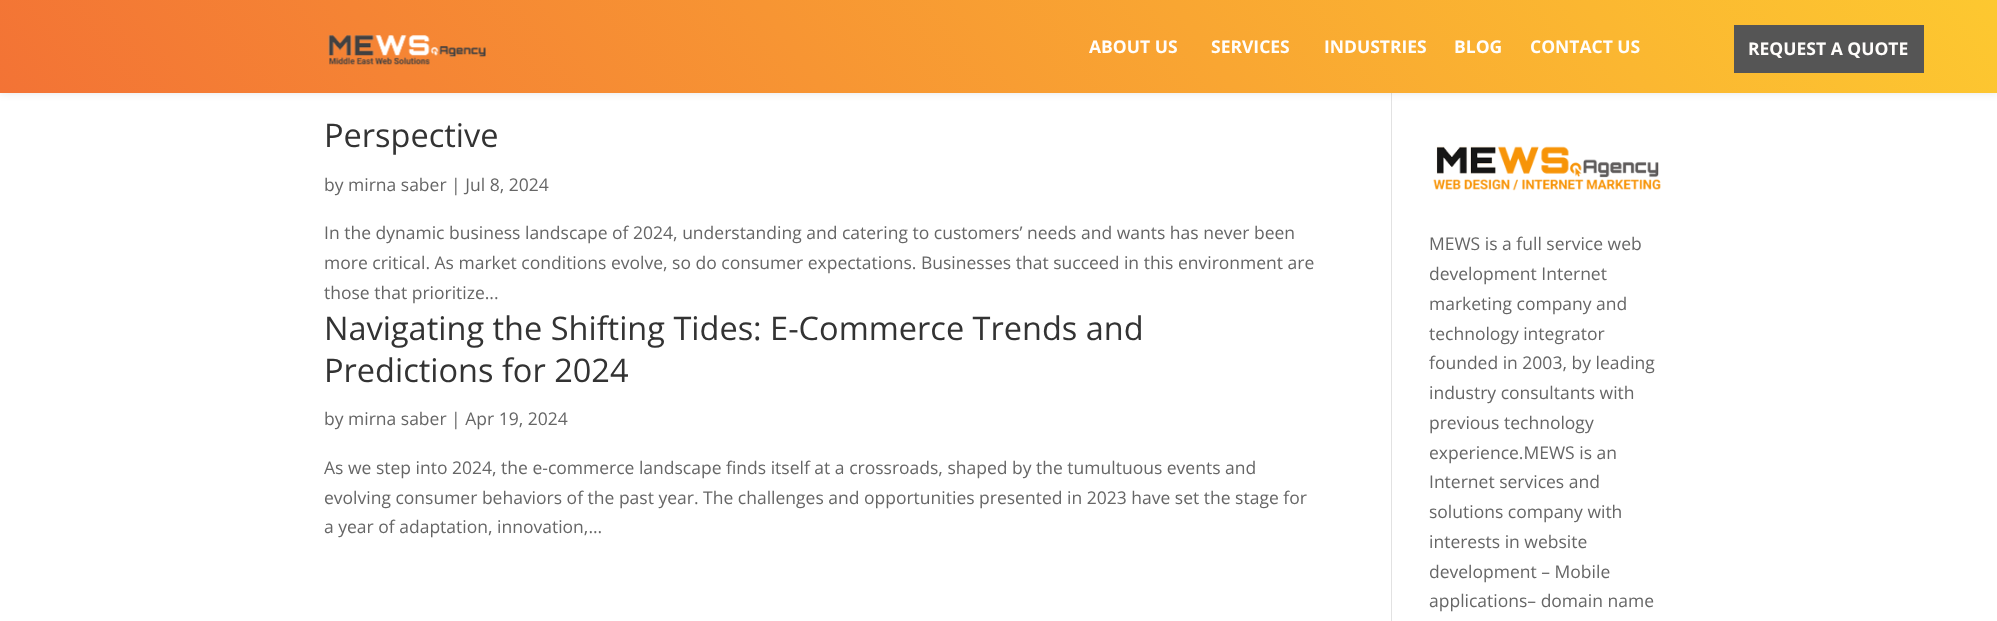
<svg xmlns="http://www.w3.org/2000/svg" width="1997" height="621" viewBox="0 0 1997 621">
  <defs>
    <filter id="blur1" x="-50%" y="-200%" width="200%" height="500%"><feGaussianBlur stdDeviation="4.5"/></filter>
    <linearGradient id="g1" gradientUnits="userSpaceOnUse" x1="1691" y1="-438" x2="307" y2="531"><stop offset="0" stop-color="#fdc830"/><stop offset="1" stop-color="#f37335"/></linearGradient>
  </defs>
  <rect width="100%" height="100%" fill="#ffffff"/>
  <rect x="1391" y="93" width="1" height="528" fill="#e2e2e2"/>
  <rect x="0" y="0" width="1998" height="93" fill="#000000" fill-opacity="0.1" filter="url(#blur1)"/>
  <rect x="0" y="0" width="1997" height="93" fill="url(#g1)"/>
  <image x="328" y="35" width="158" height="30" href="img1.png"/>
  <text x="1089" y="53" font-family="Open Sans" font-size="17.5" font-weight="bold" fill="#fffdfb">ABOUT US</text>
  <text x="1211" y="53" font-family="Open Sans" font-size="17.5" font-weight="bold" fill="#fffdfb">SERVICES</text>
  <text x="1324" y="53" font-family="Open Sans" font-size="17.5" font-weight="bold" fill="#fffdfb">INDUSTRIES</text>
  <text x="1454" y="53" font-family="Open Sans" font-size="17.5" font-weight="bold" fill="#fffdfb">BLOG</text>
  <text x="1530" y="53" font-family="Open Sans" font-size="17.5" font-weight="bold" fill="#fffdfb">CONTACT US</text>
  <rect x="1734" y="25" width="190" height="48" fill="#555555"/>
  <text x="1748" y="55" font-family="Open Sans" font-size="17.5" font-weight="bold" fill="#fffdfb">REQUEST A QUOTE</text>
  <text x="324" y="147" font-family="Open Sans" font-size="32.5" fill="#333333">Perspective</text>
  <text x="324" y="191" font-family="Open Sans" font-size="17.5" fill="#666666">by mirna saber | Jul 8, 2024</text>
  <text x="324" y="239" font-family="Open Sans" font-size="17.5" fill="#666666">In the dynamic business landscape of 2024, understanding and catering to customers’ needs and wants has never been</text>
  <text x="324" y="269" font-family="Open Sans" font-size="17.5" fill="#666666">more critical. As market conditions evolve, so do consumer expectations. Businesses that succeed in this environment are</text>
  <text x="324" y="299" font-family="Open Sans" font-size="17.5" fill="#666666">those that prioritize...</text>
  <text x="324" y="340" font-family="Open Sans" font-size="32.5" fill="#333333">Navigating the Shifting Tides: E-Commerce Trends and</text>
  <text x="324" y="382" font-family="Open Sans" font-size="32.5" fill="#333333">Predictions for 2024</text>
  <text x="324" y="425" font-family="Open Sans" font-size="17.5" fill="#666666">by mirna saber | Apr 19, 2024</text>
  <text x="324" y="474" font-family="Open Sans" font-size="17.5" fill="#666666">As we step into 2024, the e-commerce landscape finds itself at a crossroads, shaped by the tumultuous events and</text>
  <text x="324" y="504" font-family="Open Sans" font-size="17.5" fill="#666666">evolving consumer behaviors of the past year. The challenges and opportunities presented in 2023 have set the stage for</text>
  <text x="324" y="533" font-family="Open Sans" font-size="17.5" fill="#666666">a year of adaptation, innovation,...</text>
  <image x="1433" y="146" width="228" height="45" href="img2.png"/>
  <text x="1429" y="250" font-family="Open Sans" font-size="17.5" fill="#666666">MEWS is a full service web</text>
  <text x="1429" y="280" font-family="Open Sans" font-size="17.5" fill="#666666">development Internet</text>
  <text x="1429" y="310" font-family="Open Sans" font-size="17.5" fill="#666666">marketing company and</text>
  <text x="1429" y="340" font-family="Open Sans" font-size="17.5" fill="#666666">technology integrator</text>
  <text x="1429" y="369" font-family="Open Sans" font-size="17.5" fill="#666666">founded in 2003, by leading</text>
  <text x="1429" y="399" font-family="Open Sans" font-size="17.5" fill="#666666">industry consultants with</text>
  <text x="1429" y="429" font-family="Open Sans" font-size="17.5" fill="#666666">previous technology</text>
  <text x="1429" y="459" font-family="Open Sans" font-size="17.5" fill="#666666">experience.MEWS is an</text>
  <text x="1429" y="488" font-family="Open Sans" font-size="17.5" fill="#666666">Internet services and</text>
  <text x="1429" y="518" font-family="Open Sans" font-size="17.5" fill="#666666">solutions company with</text>
  <text x="1429" y="548" font-family="Open Sans" font-size="17.5" fill="#666666">interests in website</text>
  <text x="1429" y="578" font-family="Open Sans" font-size="17.5" fill="#666666">development – Mobile</text>
  <text x="1429" y="607" font-family="Open Sans" font-size="17.5" fill="#666666">applications– domain name</text>
</svg>
